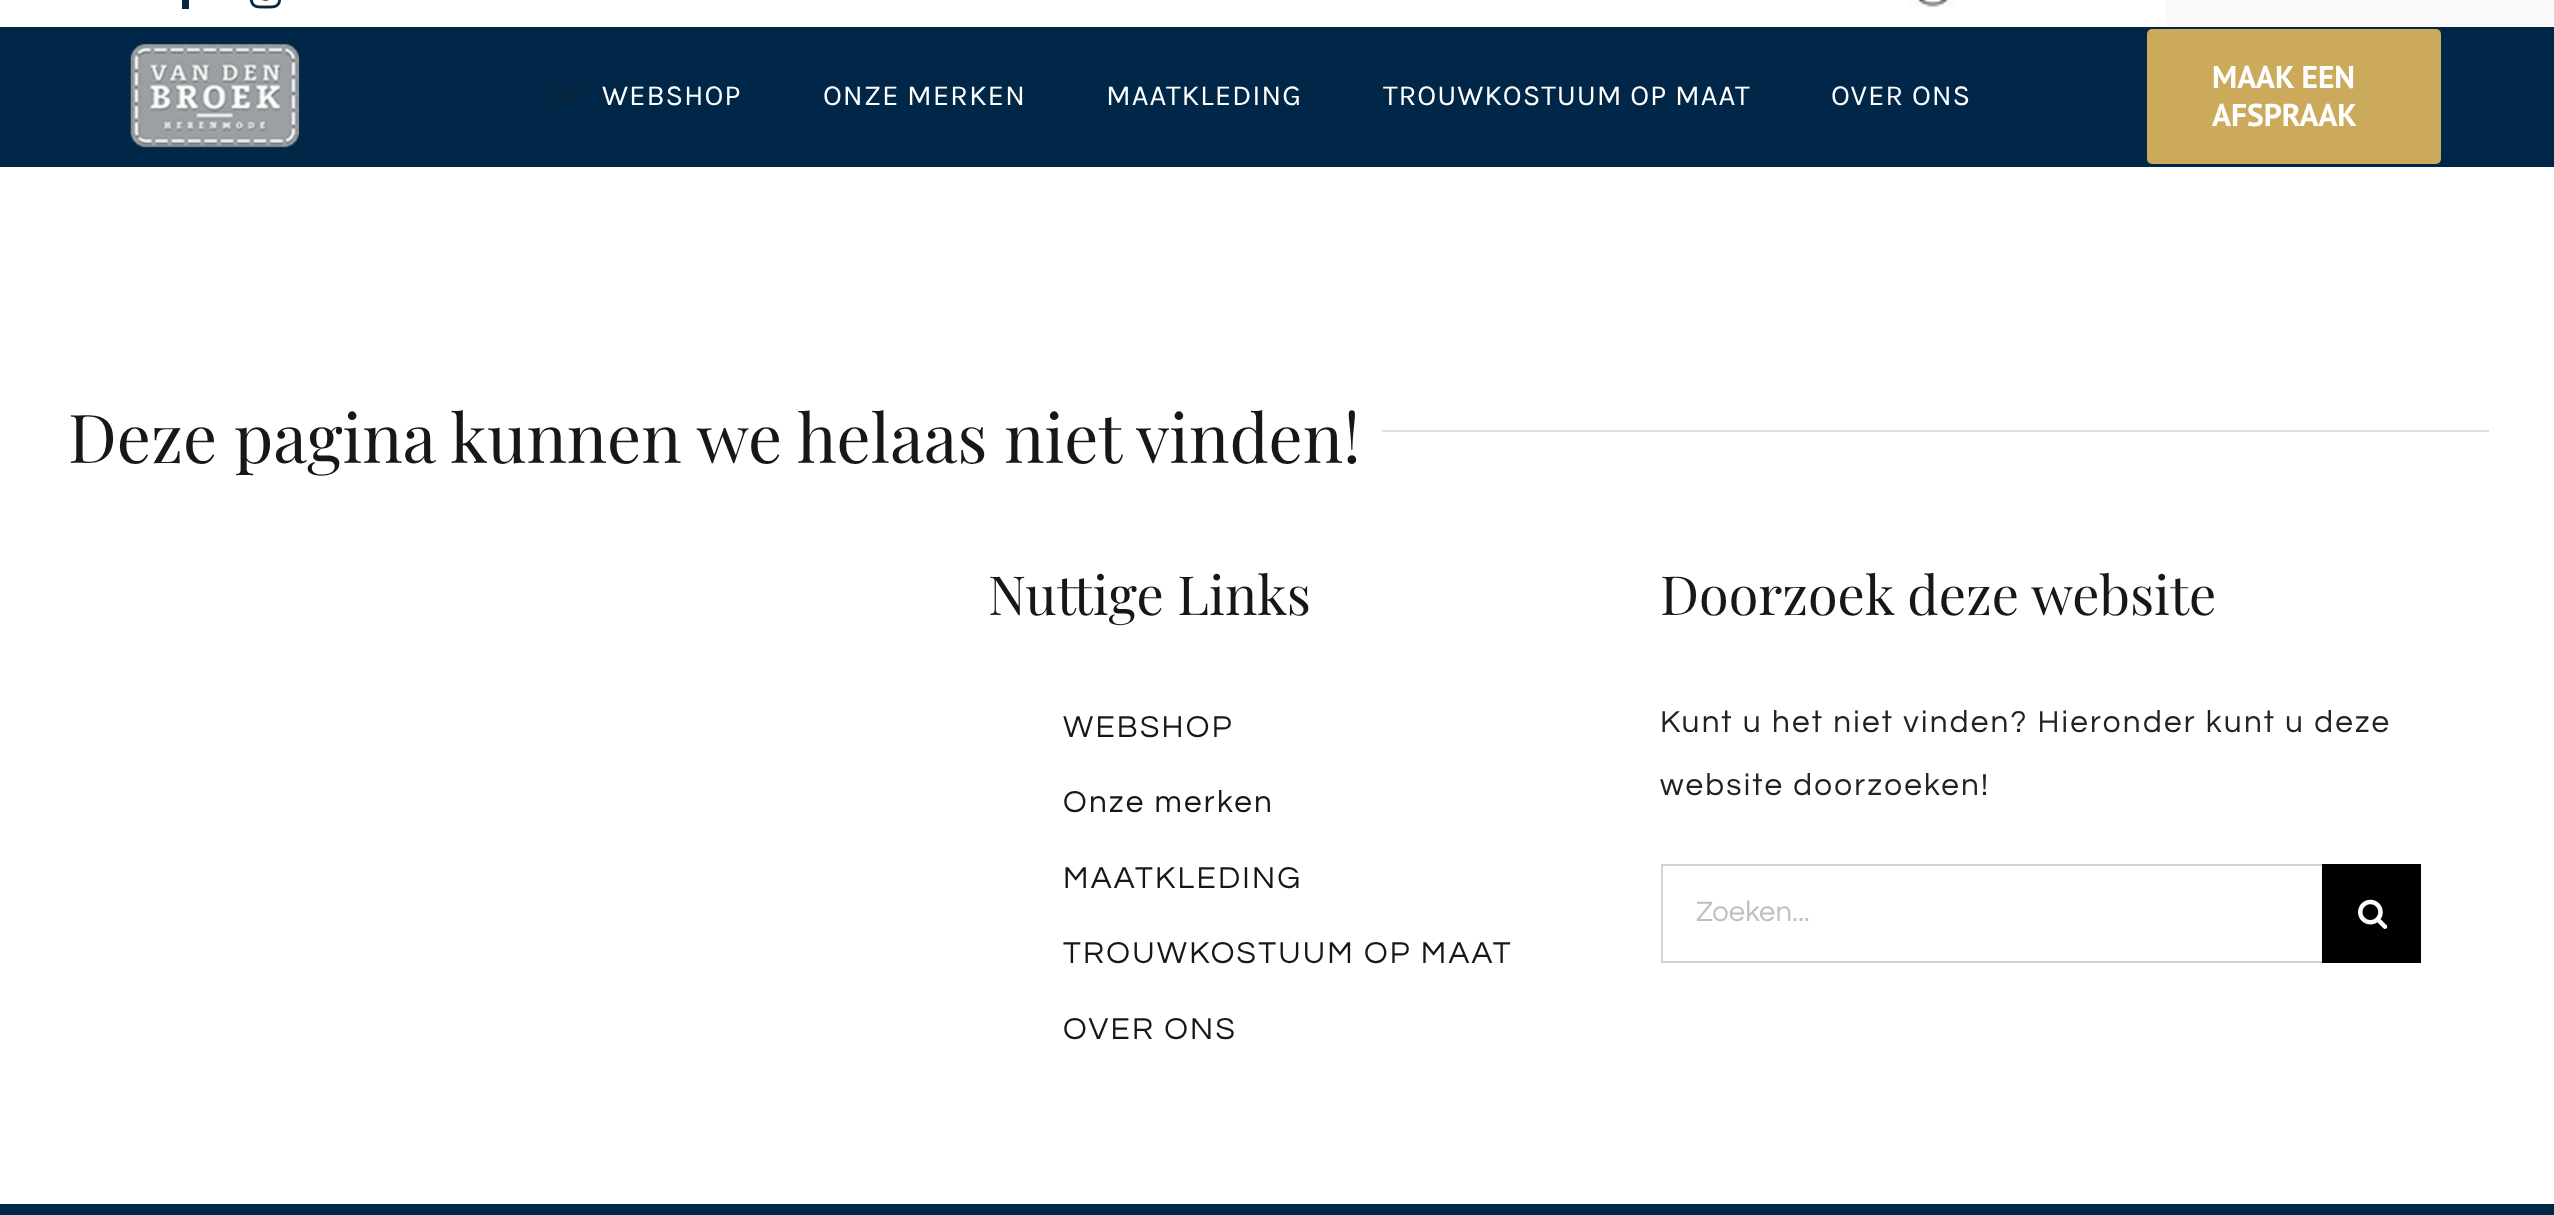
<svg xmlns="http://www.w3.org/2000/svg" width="2554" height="1215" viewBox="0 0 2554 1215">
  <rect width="100%" height="100%" fill="#ffffff"/>
  <rect x="182" y="0" width="7" height="9" fill="#09263f"/>
  <image x="250" y="0" width="31" height="9" href="img1.png"/>
  <image x="1909" y="0" width="47" height="7" href="img2.png"/>
  <path d="M2174-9H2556V27H2174C2169 27 2165 23 2165 18V0C2165-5 2169-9 2174-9Z" fill="#f9f9f9"/>
  <rect x="0" y="27" width="2554" height="140" fill="#002747"/>
  <image x="130" y="43" width="170" height="105" href="img3.png"/>
  <image x="553" y="83" width="28" height="23" href="img4.png"/>
  <text x="602" y="105" font-family="Karla" font-size="29.25" letter-spacing="0.9" fill="#ffffff">WEBSHOP</text>
  <text x="823" y="105" font-family="Karla" font-size="29.25" letter-spacing="0.9" fill="#ffffff">ONZE MERKEN</text>
  <text x="1106" y="105" font-family="Karla" font-size="29.25" letter-spacing="0.9" fill="#ffffff">MAATKLEDING</text>
  <text x="1383" y="105" font-family="Karla" font-size="29.25" letter-spacing="0.9" fill="#ffffff">TROUWKOSTUUM OP MAAT</text>
  <text x="1831" y="105" font-family="Karla" font-size="29.25" letter-spacing="0.9" fill="#ffffff">OVER ONS</text>
  <rect x="2147" y="29" width="294" height="135" rx="5" fill="#cbaa5c"/>
  <text x="2212" y="88" font-family="PT Sans" font-size="31.5" font-weight="bold" fill="#ffffff">MAAK EEN</text>
  <text x="2212" y="126" font-family="PT Sans" font-size="31.5" font-weight="bold" fill="#ffffff">AFSPRAAK</text>
  <text x="68" y="463" font-family="Playfair Display" font-size="67.5" fill="#171717">Deze pagina kunnen we helaas niet vinden!</text>
  <rect x="1382" y="430" width="1107" height="2" fill="#e0dede"/>
  <text x="988" y="615" font-family="Playfair Display" font-size="54" fill="#171717">Nuttige Links</text>
  <text x="1063" y="737" font-family="Questrial" font-size="31.5" letter-spacing="2.25" fill="#171717">WEBSHOP</text>
  <text x="1063" y="812" font-family="Questrial" font-size="31.5" letter-spacing="2.25" fill="#171717">Onze merken</text>
  <text x="1063" y="888" font-family="Questrial" font-size="31.5" letter-spacing="2.25" fill="#171717">MAATKLEDING</text>
  <text x="1063" y="963" font-family="Questrial" font-size="31.5" letter-spacing="2.25" fill="#171717">TROUWKOSTUUM OP MAAT</text>
  <text x="1063" y="1039" font-family="Questrial" font-size="31.5" letter-spacing="2.25" fill="#171717">OVER ONS</text>
  <text x="1660" y="615" font-family="Playfair Display" font-size="54" fill="#171717">Doorzoek deze website</text>
  <text x="1660" y="732" font-family="Questrial" font-size="31.5" letter-spacing="2.25" fill="#222222">Kunt u het niet vinden? Hieronder kunt u deze</text>
  <text x="1660" y="795" font-family="Questrial" font-size="31.5" letter-spacing="2.25" fill="#222222">website doorzoeken!</text>
  <rect x="1661" y="864" width="661" height="2" fill="#d2d2d2"/>
  <rect x="1661" y="961" width="661" height="2" fill="#d2d2d2"/>
  <rect x="1661" y="864" width="2" height="99" fill="#d2d2d2"/>
  <text x="1696" y="921" font-family="Questrial" font-size="29.25" fill="#bfbfbf">Zoeken...</text>
  <rect x="2322" y="864" width="99" height="99" fill="#000000"/>
  <image x="2358" y="899" width="30" height="30" href="img5.png"/>
  <rect x="0" y="1204" width="2554" height="11" fill="#002747"/>
</svg>
